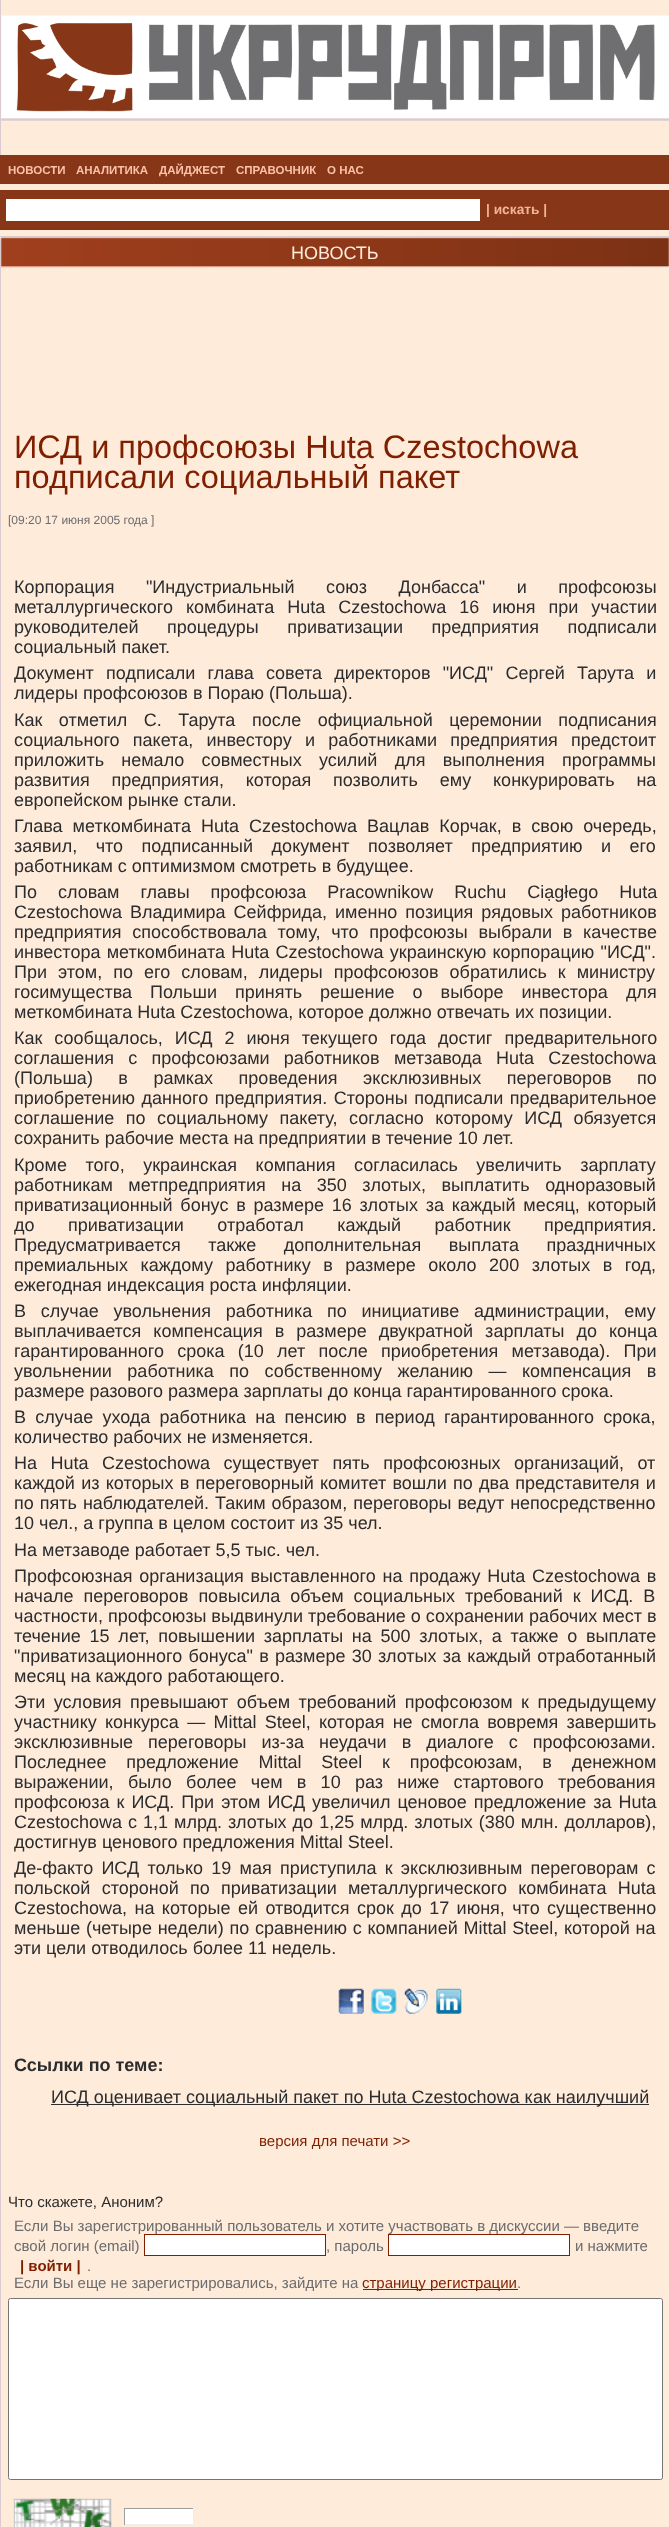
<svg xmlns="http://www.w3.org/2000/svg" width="669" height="2527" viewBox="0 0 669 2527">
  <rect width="100%" height="100%" fill="#ffebda"/>
  <rect x="0" y="0" width="1" height="155" fill="#dbcbd1"/>
  <image x="1" y="15" width="668" height="106" href="img1.png"/>
  <rect x="0" y="155" width="669" height="29" fill="#873617"/>
  <text x="8" y="174" font-family="Liberation Sans" font-size="11.5" font-weight="bold" fill="#fbc1a9">НОВОСТИ</text>
  <text x="76" y="174" font-family="Liberation Sans" font-size="11.5" font-weight="bold" fill="#fbc1a9">АНАЛИТИКА</text>
  <text x="159" y="174" font-family="Liberation Sans" font-size="11.5" font-weight="bold" fill="#fbc1a9">ДАЙДЖЕСТ</text>
  <text x="236" y="174" font-family="Liberation Sans" font-size="11.5" font-weight="bold" fill="#fbc1a9">СПРАВОЧНИК</text>
  <text x="327" y="174" font-family="Liberation Sans" font-size="11.5" font-weight="bold" fill="#fbc1a9">О НАС</text>
  <rect x="0" y="190" width="669" height="40" fill="#873617"/>
  <rect x="6" y="199" width="474" height="22" fill="#ffffff"/>
  <text x="486" y="214" font-family="Liberation Sans" font-size="13.75" font-weight="bold" fill="#f2b397">| искать |</text>
  <rect x="0" y="236" width="669" height="1" fill="#dbcbd1"/>
  <rect x="0" y="238" width="1" height="2289" fill="#dbcbd1"/>
  <image x="1" y="237" width="668" height="31" href="img2.png"/>
  <text x="291" y="259" font-family="Liberation Sans" font-size="18" fill="#ffebda">НОВОСТЬ</text>
  <text x="14" y="458" font-family="Liberation Sans" font-size="32.5" fill="#7f1f00">ИСД и профсоюзы Huta Czestochowa</text>
  <text x="14" y="488" font-family="Liberation Sans" font-size="32.5" fill="#7f1f00">подписали социальный пакет</text>
  <text x="8" y="524" font-family="Liberation Sans" font-size="12" fill="#6a6c6e">[09:20 17 июня 2005 года ]</text>
  <text x="14" y="593" word-spacing="26.5" font-family="Liberation Sans" font-size="18" fill="#2a2c2e">Корпорация "Индустриальный союз Донбасса" и профсоюзы</text>
  <text x="14" y="613" word-spacing="8" font-family="Liberation Sans" font-size="18" fill="#2a2c2e">металлургического комбината Huta Czestochowa 16 июня при участии</text>
  <text x="14" y="633" word-spacing="23.5" font-family="Liberation Sans" font-size="18" fill="#2a2c2e">руководителей процедуры приватизации предприятия подписали</text>
  <text x="14" y="653" font-family="Liberation Sans" font-size="18" fill="#2a2c2e">социальный пакет.</text>
  <text x="14" y="679" word-spacing="7.25" font-family="Liberation Sans" font-size="18" fill="#2a2c2e">Документ подписали глава совета директоров "ИСД" Сергей Тарута и</text>
  <text x="14" y="699" font-family="Liberation Sans" font-size="18" fill="#2a2c2e">лидеры профсоюзов в Пораю (Польша).</text>
  <text x="14" y="726" word-spacing="11.5" font-family="Liberation Sans" font-size="18" fill="#2a2c2e">Как отметил С. Тарута после официальной церемонии подписания</text>
  <text x="14" y="746" word-spacing="8.25" font-family="Liberation Sans" font-size="18" fill="#2a2c2e">социального пакета, инвестору и работниками предприятия предстоит</text>
  <text x="14" y="766" word-spacing="12.25" font-family="Liberation Sans" font-size="18" fill="#2a2c2e">приложить немало совместных усилий для выполнения программы</text>
  <text x="14" y="786" word-spacing="16.75" font-family="Liberation Sans" font-size="18" fill="#2a2c2e">развития предприятия, которая позволить ему конкурировать на</text>
  <text x="14" y="806" font-family="Liberation Sans" font-size="18" fill="#2a2c2e">европейском рынке стали.</text>
  <text x="14" y="832" word-spacing="5" font-family="Liberation Sans" font-size="18" fill="#2a2c2e">Глава меткомбината Huta Czestochowa Вацлав Корчак, в свою очередь,</text>
  <text x="14" y="852" word-spacing="13.5" font-family="Liberation Sans" font-size="18" fill="#2a2c2e">заявил, что подписанный документ позволяет предприятию и его</text>
  <text x="14" y="872" font-family="Liberation Sans" font-size="18" fill="#2a2c2e">работникам с оптимизмом смотреть в будущее.</text>
  <text x="14" y="898" word-spacing="16" font-family="Liberation Sans" font-size="18" fill="#2a2c2e">По словам главы профсоюза Pracownikow Ruchu Ciạgłego Huta</text>
  <text x="14" y="918" word-spacing="3" font-family="Liberation Sans" font-size="18" fill="#2a2c2e">Czestochowa Владимира Сейфрида, именно позиция рядовых работников</text>
  <text x="14" y="938" word-spacing="5.75" font-family="Liberation Sans" font-size="18" fill="#2a2c2e">предприятия способствовала тому, что профсоюзы выбрали в качестве</text>
  <text x="14" y="958" word-spacing="1.25" font-family="Liberation Sans" font-size="18" fill="#2a2c2e">инвестора меткомбината Huta Czestochowa украинскую корпорацию "ИСД".</text>
  <text x="14" y="978" word-spacing="6" font-family="Liberation Sans" font-size="18" fill="#2a2c2e">При этом, по его словам, лидеры профсоюзов обратились к министру</text>
  <text x="14" y="998" word-spacing="13" font-family="Liberation Sans" font-size="18" fill="#2a2c2e">госимущества Польши принять решение о выборе инвестора для</text>
  <text x="14" y="1018" font-family="Liberation Sans" font-size="18" fill="#2a2c2e">меткомбината Huta Czestochowa, которое должно отвечать их позиции.</text>
  <text x="14" y="1044" word-spacing="7" font-family="Liberation Sans" font-size="18" fill="#2a2c2e">Как сообщалось, ИСД 2 июня текущего года достиг предварительного</text>
  <text x="14" y="1064" word-spacing="9.25" font-family="Liberation Sans" font-size="18" fill="#2a2c2e">соглашения с профсоюзами работников метзавода Huta Czestochowa</text>
  <text x="14" y="1084" word-spacing="20.5" font-family="Liberation Sans" font-size="18" fill="#2a2c2e">(Польша) в рамках проведения эксклюзивных переговоров по</text>
  <text x="14" y="1104" word-spacing="1.5" font-family="Liberation Sans" font-size="18" fill="#2a2c2e">приобретению данного предприятия. Стороны подписали предварительное</text>
  <text x="14" y="1124" word-spacing="6.5" font-family="Liberation Sans" font-size="18" fill="#2a2c2e">соглашение по социальному пакету, согласно которому ИСД обязуется</text>
  <text x="14" y="1144" font-family="Liberation Sans" font-size="18" fill="#2a2c2e">сохранить рабочие места на предприятии в течение 10 лет.</text>
  <text x="14" y="1171" word-spacing="13.5" font-family="Liberation Sans" font-size="18" fill="#2a2c2e">Кроме того, украинская компания согласилась увеличить зарплату</text>
  <text x="14" y="1191" word-spacing="10.5" font-family="Liberation Sans" font-size="18" fill="#2a2c2e">работникам метпредприятия на 350 злотых, выплатить одноразовый</text>
  <text x="14" y="1211" word-spacing="2.75" font-family="Liberation Sans" font-size="18" fill="#2a2c2e">приватизационный бонус в размере 16 злотых за каждый месяц, который</text>
  <text x="14" y="1231" word-spacing="28.5" font-family="Liberation Sans" font-size="18" fill="#2a2c2e">до приватизации отработал каждый работник предприятия.</text>
  <text x="14" y="1251" word-spacing="22.5" font-family="Liberation Sans" font-size="18" fill="#2a2c2e">Предусматривается также дополнительная выплата праздничных</text>
  <text x="14" y="1271" word-spacing="7.5" font-family="Liberation Sans" font-size="18" fill="#2a2c2e">премиальных каждому работнику в размере около 200 злотых в год,</text>
  <text x="14" y="1291" font-family="Liberation Sans" font-size="18" fill="#2a2c2e">ежегодная индексация роста инфляции.</text>
  <text x="14" y="1317" word-spacing="9.75" font-family="Liberation Sans" font-size="18" fill="#2a2c2e">В случае увольнения работника по инициативе администрации, ему</text>
  <text x="14" y="1337" word-spacing="7" font-family="Liberation Sans" font-size="18" fill="#2a2c2e">выплачивается компенсация в размере двукратной зарплаты до конца</text>
  <text x="14" y="1357" word-spacing="8.25" font-family="Liberation Sans" font-size="18" fill="#2a2c2e">гарантированного срока (10 лет после приобретения метзавода). При</text>
  <text x="14" y="1377" word-spacing="10.5" font-family="Liberation Sans" font-size="18" fill="#2a2c2e">увольнении работника по собственному желанию — компенсация в</text>
  <text x="14" y="1397" font-family="Liberation Sans" font-size="18" fill="#2a2c2e">размере разового размера зарплаты до конца гарантированного срока.</text>
  <text x="14" y="1423" word-spacing="4.25" font-family="Liberation Sans" font-size="18" fill="#2a2c2e">В случае ухода работника на пенсию в период гарантированного срока,</text>
  <text x="14" y="1443" font-family="Liberation Sans" font-size="18" fill="#2a2c2e">количество рабочих не изменяется.</text>
  <text x="14" y="1469" word-spacing="8.5" font-family="Liberation Sans" font-size="18" fill="#2a2c2e">На Huta Czestochowa существует пять профсоюзных организаций, от</text>
  <text x="14" y="1489" word-spacing="1.25" font-family="Liberation Sans" font-size="18" fill="#2a2c2e">каждой из которых в переговорный комитет вошли по два представителя и</text>
  <text x="14" y="1509" word-spacing="1" font-family="Liberation Sans" font-size="18" fill="#2a2c2e">по пять наблюдателей. Таким образом, переговоры ведут непосредственно</text>
  <text x="14" y="1529" font-family="Liberation Sans" font-size="18" fill="#2a2c2e">10 чел., а группа в целом состоит из 35 чел.</text>
  <text x="14" y="1556" font-family="Liberation Sans" font-size="18" fill="#2a2c2e">На метзаводе работает 5,5 тыс. чел.</text>
  <text x="14" y="1582" word-spacing="1.75" font-family="Liberation Sans" font-size="18" fill="#2a2c2e">Профсоюзная организация выставленного на продажу Huta Czestochowa в</text>
  <text x="14" y="1602" word-spacing="5" font-family="Liberation Sans" font-size="18" fill="#2a2c2e">начале переговоров повысила объем социальных требований к ИСД. В</text>
  <text x="14" y="1622" font-family="Liberation Sans" font-size="18" fill="#2a2c2e">частности, профсоюзы выдвинули требование о сохранении рабочих мест в</text>
  <text x="14" y="1642" word-spacing="3.75" font-family="Liberation Sans" font-size="18" fill="#2a2c2e">течение 15 лет, повышении зарплаты на 500 злотых, а также о выплате</text>
  <text x="14" y="1662" word-spacing="1.25" font-family="Liberation Sans" font-size="18" fill="#2a2c2e">"приватизационного бонуса" в размере 30 злотых за каждый отработанный</text>
  <text x="14" y="1682" font-family="Liberation Sans" font-size="18" fill="#2a2c2e">месяц на каждого работающего.</text>
  <text x="14" y="1708" word-spacing="3.5" font-family="Liberation Sans" font-size="18" fill="#2a2c2e">Эти условия превышают объем требований профсоюзом к предыдущему</text>
  <text x="14" y="1728" word-spacing="3.25" font-family="Liberation Sans" font-size="18" fill="#2a2c2e">участнику конкурса — Mittal Steel, которая не смогла вовремя завершить</text>
  <text x="14" y="1748" word-spacing="10" font-family="Liberation Sans" font-size="18" fill="#2a2c2e">эксклюзивные переговоры из-за неудачи в диалоге с профсоюзами.</text>
  <text x="14" y="1768" word-spacing="14.75" font-family="Liberation Sans" font-size="18" fill="#2a2c2e">Последнее предложение Mittal Steel к профсоюзам, в денежном</text>
  <text x="14" y="1788" word-spacing="9.25" font-family="Liberation Sans" font-size="18" fill="#2a2c2e">выражении, было более чем в 10 раз ниже стартового требования</text>
  <text x="14" y="1808" word-spacing="2" font-family="Liberation Sans" font-size="18" fill="#2a2c2e">профсоюза к ИСД. При этом ИСД увеличил ценовое предложение за Huta</text>
  <text x="14" y="1828" word-spacing="1" font-family="Liberation Sans" font-size="18" fill="#2a2c2e">Czestochowa с 1,1 млрд. злотых до 1,25 млрд. злотых (380 млн. долларов),</text>
  <text x="14" y="1848" font-family="Liberation Sans" font-size="18" fill="#2a2c2e">достигнув ценового предложения Mittal Steel.</text>
  <text x="14" y="1874" word-spacing="3.25" font-family="Liberation Sans" font-size="18" fill="#2a2c2e">Де-факто ИСД только 19 мая приступила к эксклюзивным переговорам с</text>
  <text x="14" y="1894" word-spacing="6.25" font-family="Liberation Sans" font-size="18" fill="#2a2c2e">польской стороной по приватизации металлургического комбината Huta</text>
  <text x="14" y="1914" word-spacing="2.4" font-family="Liberation Sans" font-size="18" fill="#2a2c2e">Czestochowa, на которые ей отводится срок до 17 июня, что существенно</text>
  <text x="14" y="1934" word-spacing="0.75" font-family="Liberation Sans" font-size="18" fill="#2a2c2e">меньше (четыре недели) по сравнению с компанией Mittal Steel, которой на</text>
  <text x="14" y="1954" font-family="Liberation Sans" font-size="18" fill="#2a2c2e">эти цели отводилось более 11 недель.</text>
  <image x="338" y="1988" width="26" height="26" href="img3.png"/>
  <image x="371" y="1988" width="26" height="26" href="img4.png"/>
  <image x="403" y="1988" width="25" height="26" href="img5.png"/>
  <image x="436" y="1988" width="26" height="26" href="img6.png"/>
  <text x="14" y="2071" font-family="Liberation Sans" font-size="18" font-weight="bold" fill="#2a2c2e">Ссылки по теме:</text>
  <rect x="51" y="2104" width="598" height="1" fill="#2a2c2e"/>
  <text x="51" y="2103" font-family="Liberation Sans" font-size="18" fill="#2a2c2e">ИСД оценивает социальный пакет по Huta Czestochowa как наилучший</text>
  <text x="259" y="2146" font-family="Liberation Sans" font-size="15" fill="#7f1f00">версия для печати &gt;&gt;</text>
  <text x="8" y="2207" font-family="Liberation Sans" font-size="15" fill="#2a2c2e">Что скажете, Аноним?</text>
  <text x="14" y="2231" font-family="Liberation Sans" font-size="15" fill="#6a6c6e">Если Вы зарегистрированный пользователь и хотите участвовать в дискуссии — введите</text>
  <text x="14" y="2251" font-family="Liberation Sans" font-size="15" fill="#6a6c6e">свой логин (email)</text>
  <rect x="144.5" y="2234.5" width="181" height="21" fill="#ffffff" stroke="#7f1f00"/>
  <text x="326" y="2251" font-family="Liberation Sans" font-size="15" fill="#6a6c6e">, пароль</text>
  <rect x="388.5" y="2234.5" width="181" height="21" fill="#ffffff" stroke="#7f1f00"/>
  <text x="575" y="2251" font-family="Liberation Sans" font-size="15" fill="#6a6c6e">и нажмите</text>
  <text x="20" y="2271" font-family="Liberation Sans" font-size="15" font-weight="bold" fill="#7f1f00">| войти |</text>
  <text x="87" y="2271" font-family="Liberation Sans" font-size="15" fill="#6a6c6e">.</text>
  <text x="14" y="2288" font-family="Liberation Sans" font-size="15" fill="#6a6c6e">Если Вы еще не зарегистрировались, зайдите на</text>
  <rect x="363" y="2289" width="155" height="1" fill="#7f1f00"/>
  <text x="362" y="2288" font-family="Liberation Sans" font-size="15" fill="#7f1f00">страницу регистрации</text>
  <text x="517" y="2288" font-family="Liberation Sans" font-size="15" fill="#6a6c6e">.</text>
  <rect x="8.5" y="2298.5" width="654" height="181" rx="2" fill="#ffffff" stroke="#767676"/>
  <image x="13" y="2498" width="99" height="29" href="img7.png"/>
  <rect x="125" y="2509" width="68" height="15" fill="#ffffff"/>
  <rect x="124" y="2508" width="70" height="1" fill="#9f9f9f"/>
  <rect x="193" y="2508" width="1" height="17" fill="#eeeeee"/>
  <rect x="124" y="2524" width="70" height="1" fill="#eeeeee"/>
  <rect x="124" y="2508" width="1" height="17" fill="#9f9f9f"/>
</svg>
